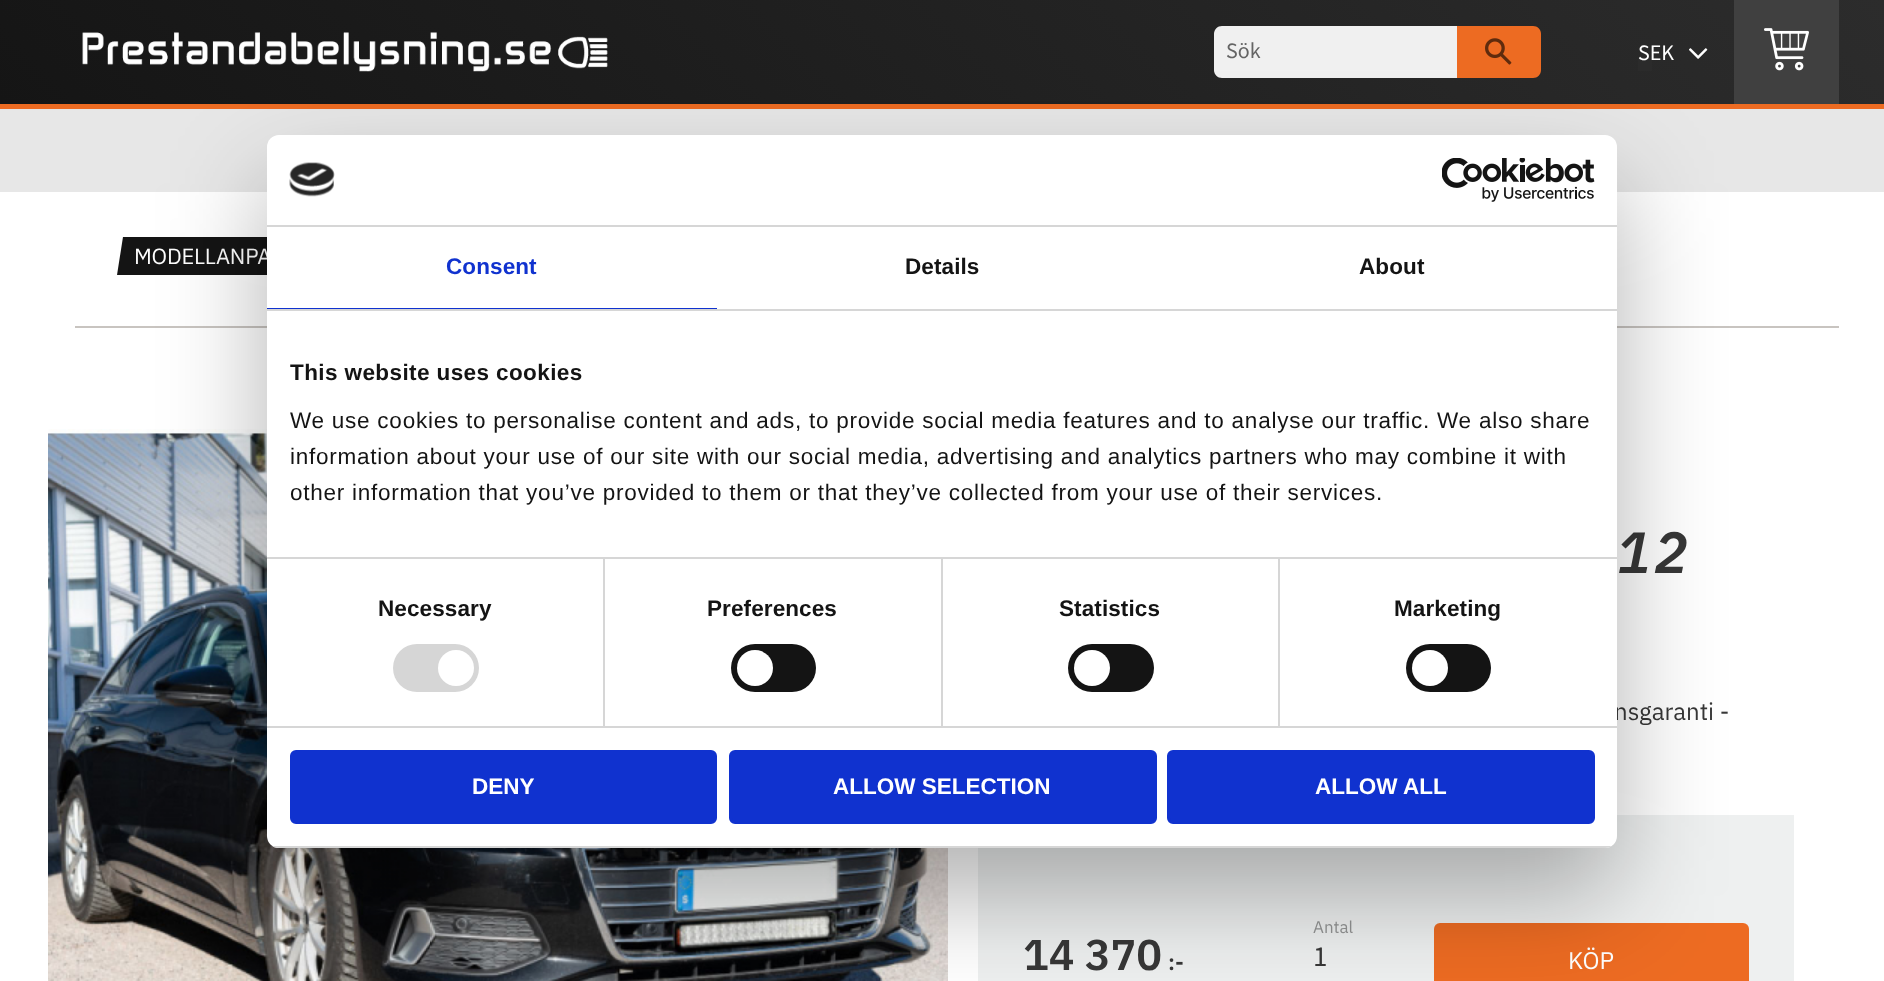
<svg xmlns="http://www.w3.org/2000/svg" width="1884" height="981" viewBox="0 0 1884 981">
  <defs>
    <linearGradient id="g1" gradientUnits="userSpaceOnUse" x1="423" y1="615" x2="1461" y2="-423"><stop offset="0" stop-color="#141414"/><stop offset="1" stop-color="#2c2c2c"/></linearGradient>
    <filter id="blur1" x="-50%" y="-200%" width="200%" height="500%"><feGaussianBlur stdDeviation="51"/></filter>
    <clipPath id="clip1"><rect x="267" y="135" width="1350" height="713" rx="12"/></clipPath>
  </defs>
  <rect width="100%" height="100%" fill="#ffffff"/>
  <rect x="0" y="0" width="1884" height="104" fill="url(#g1)"/>
  <image x="82" y="32" width="526" height="40" href="img1.png"/>
  <path d="M1222 26H1457V78H1222C1217.5 78 1214 74.5 1214 70V34C1214 29.5 1217.5 26 1222 26Z" fill="#f0f0f0"/>
  <text x="1226" y="58" font-family="Source Sans Pro" font-size="22" fill="#646464">Sök</text>
  <path d="M1457 26H1533C1537.5 26 1541 29.5 1541 34V70C1541 74.5 1537.5 78 1533 78H1457Z" fill="#ed6b22"/>
  <image x="1485" y="38" width="27" height="27" href="img2.png"/>
  <rect x="1638" y="57" width="14" height="14" fill="#2b2b2b"/>
  <text x="1638" y="60" font-family="Source Sans Pro" font-size="22" fill="#ffffff">SEK</text>
  <image x="1689" y="48" width="19" height="11" href="img3.png"/>
  <rect x="1734" y="0" width="105" height="104" fill="#404040"/>
  <image x="1764" y="28" width="45" height="43" href="img4.png"/>
  <rect x="0" y="109" width="1884" height="83" fill="#e7e7e7"/>
  <rect x="0" y="104" width="1884" height="5" fill="#ed6b22"/>
  <rect x="75" y="326" width="1764" height="2" fill="#c8c4c0"/>
  <path d="M123 237H340L333 275H117Z" fill="#141414"/>
  <text x="134" y="264" font-family="IBM Plex Sans" font-size="22" letter-spacing="-0.25" fill="#ffffff">MODELLANPA</text>
  <text x="1616" y="573" font-family="IBM Plex Sans" font-size="58" font-weight="600" font-style="italic" letter-spacing="3" fill="#373737">12</text>
  <text x="1614" y="720" font-family="IBM Plex Sans" font-size="24" fill="#373737">nsgaranti -</text>
  <image x="48" y="429" width="900" height="552" href="img5.png"/>
  <rect x="978" y="815" width="816" height="166" fill="#eef0f0"/>
  <text x="1023" y="970" font-family="IBM Plex Sans" font-size="43" font-weight="600" fill="#373737">14 370</text>
  <text x="1168" y="970" font-family="IBM Plex Sans" font-size="22" font-weight="600" fill="#373737">:-</text>
  <text x="1313" y="933" font-family="IBM Plex Sans" font-size="17" fill="#939494">Antal</text>
  <text x="1313" y="966" font-family="Source Sans Pro" font-size="29" fill="#373737">1</text>
  <rect x="1434" y="923" width="315" height="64" rx="6" fill="#ed6b22"/>
  <text x="1568" y="969" font-family="IBM Plex Sans" font-size="24" fill="#ffffff">KÖP</text>
  <rect x="267" y="183" width="1350" height="713" rx="12" fill="#000000" fill-opacity="0.3" filter="url(#blur1)"/>
  <rect x="267" y="135" width="1350" height="713" rx="12" fill="#ffffff"/>
  <rect x="267" y="225" width="1350" height="2" fill="#d6d6d6"/>
  <image x="289" y="162" width="46" height="35" href="img6.png"/>
  <image x="1442" y="158" width="153" height="44" href="img7.png"/>
  <rect x="267" y="309" width="1350" height="2" fill="#d6d6d6"/>
  <rect x="267" y="308" width="450" height="1" fill="#1032cf"/>
  <text x="446" y="274" font-family="Liberation Sans" font-size="22.5" font-weight="bold" letter-spacing="0.1" fill="#1032cf">Consent</text>
  <text x="905" y="274" font-family="Liberation Sans" font-size="22.5" font-weight="bold" letter-spacing="0.1" fill="#141414">Details</text>
  <text x="1359" y="274" font-family="Liberation Sans" font-size="22.5" font-weight="bold" letter-spacing="0.1" fill="#141414">About</text>
  <rect x="603" y="558" width="2" height="168" fill="#d6d6d6"/>
  <rect x="941" y="558" width="2" height="168" fill="#d6d6d6"/>
  <rect x="1278" y="558" width="2" height="168" fill="#d6d6d6"/>
  <rect x="267" y="557" width="1350" height="2" fill="#d6d6d6"/>
  <text x="290" y="380" font-family="Liberation Sans" font-size="22.5" font-weight="bold" letter-spacing="0.4" fill="#141414">This website uses cookies</text>
  <text x="290" y="428" font-family="Liberation Sans" font-size="22.5" letter-spacing="0.75" fill="#141414">We use cookies to personalise content and ads, to provide social media features and to analyse our traffic. We also share</text>
  <text x="290" y="464" font-family="Liberation Sans" font-size="22.5" letter-spacing="0.75" fill="#141414">information about your use of our site with our social media, advertising and analytics partners who may combine it with</text>
  <text x="290" y="500" font-family="Liberation Sans" font-size="22.5" letter-spacing="0.75" fill="#141414">other information that you’ve provided to them or that they’ve collected from your use of their services.</text>
  <rect x="267" y="726" width="1350" height="2" fill="#d6d6d6"/>
  <text x="378" y="616" font-family="Liberation Sans" font-size="22.5" font-weight="bold" letter-spacing="0.1" fill="#141414">Necessary</text>
  <rect x="393" y="644" width="86" height="48" rx="24" fill="#d6d6d6"/>
  <circle cx="456" cy="668" r="18" fill="#ffffff"/>
  <text x="707" y="616" font-family="Liberation Sans" font-size="22.5" font-weight="bold" letter-spacing="0.1" fill="#141414">Preferences</text>
  <rect x="731" y="644" width="85" height="48" rx="24" fill="#141414"/>
  <circle cx="755" cy="668" r="18" fill="#ffffff"/>
  <text x="1059" y="616" font-family="Liberation Sans" font-size="22.5" font-weight="bold" letter-spacing="0.1" fill="#141414">Statistics</text>
  <rect x="1068" y="644" width="86" height="48" rx="24" fill="#141414"/>
  <circle cx="1092" cy="668" r="18" fill="#ffffff"/>
  <text x="1394" y="616" font-family="Liberation Sans" font-size="22.5" font-weight="bold" letter-spacing="0.1" fill="#141414">Marketing</text>
  <rect x="1406" y="644" width="85" height="48" rx="24" fill="#141414"/>
  <circle cx="1430" cy="668" r="18" fill="#ffffff"/>
  <g clip-path="url(#clip1)">
    <rect x="267" y="846" width="1350" height="2" fill="#d6d6d6"/>
  </g>
  <rect x="291.5" y="751.5" width="424" height="71" rx="4.5" fill="#1032cf" stroke="#1032cf" stroke-width="3"/>
  <text x="472" y="794" font-family="Liberation Sans" font-size="22.5" font-weight="bold" fill="#ffffff">DENY</text>
  <rect x="730.5" y="751.5" width="425" height="71" rx="4.5" fill="#1032cf" stroke="#1032cf" stroke-width="3"/>
  <text x="833" y="794" font-family="Liberation Sans" font-size="22.5" font-weight="bold" fill="#ffffff">ALLOW SELECTION</text>
  <rect x="1168.5" y="751.5" width="425" height="71" rx="4.5" fill="#1032cf" stroke="#1032cf" stroke-width="3"/>
  <text x="1315" y="794" font-family="Liberation Sans" font-size="22.5" font-weight="bold" fill="#ffffff">ALLOW ALL</text>
</svg>
